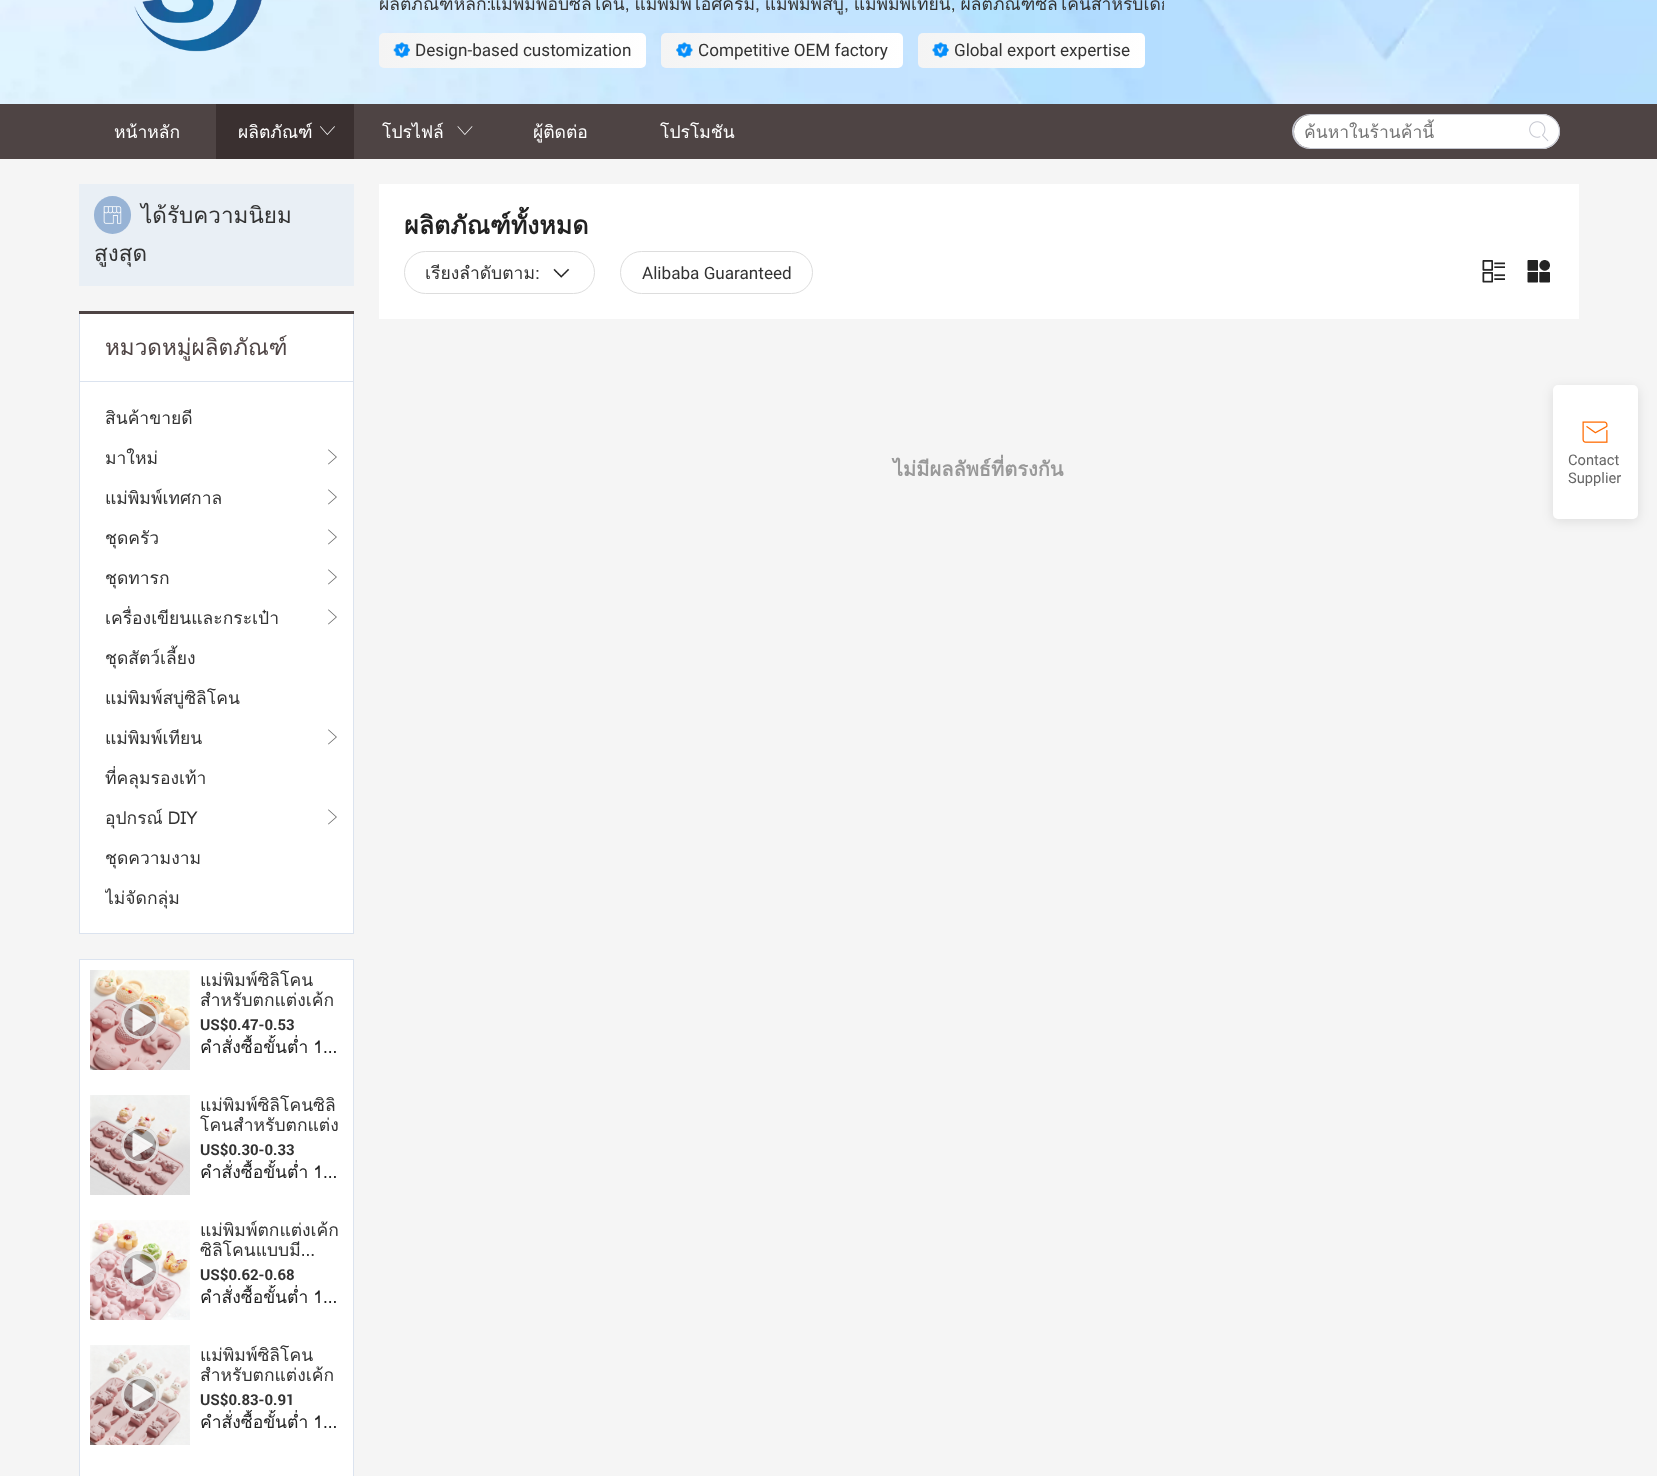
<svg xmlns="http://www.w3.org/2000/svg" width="1657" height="1476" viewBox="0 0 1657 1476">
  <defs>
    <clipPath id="clip1"><rect x="379" y="0" width="785" height="18"/></clipPath>
    <linearGradient id="g1" gradientUnits="userSpaceOnUse" x1="646" y1="50" x2="379" y2="50"><stop offset="0" stop-color="#ffffff"/><stop offset="1" stop-color="#f4f4f4"/></linearGradient>
    <linearGradient id="g2" gradientUnits="userSpaceOnUse" x1="903" y1="50" x2="661" y2="50"><stop offset="0" stop-color="#ffffff"/><stop offset="1" stop-color="#f4f4f4"/></linearGradient>
    <linearGradient id="g3" gradientUnits="userSpaceOnUse" x1="1145" y1="50" x2="918" y2="50"><stop offset="0" stop-color="#ffffff"/><stop offset="1" stop-color="#f4f4f4"/></linearGradient>
    <clipPath id="clip2"><rect x="1304" y="118" width="205" height="27"/></clipPath>
    <clipPath id="clip3"><rect x="105" y="398" width="223" height="40"/></clipPath>
    <clipPath id="clip4"><rect x="105" y="518" width="223" height="40"/></clipPath>
    <clipPath id="clip5"><rect x="105" y="558" width="223" height="40"/></clipPath>
    <clipPath id="clip6"><rect x="105" y="638" width="223" height="40"/></clipPath>
    <clipPath id="clip7"><rect x="105" y="758" width="223" height="40"/></clipPath>
    <clipPath id="clip8"><rect x="105" y="798" width="223" height="40"/></clipPath>
    <clipPath id="clip9"><rect x="105" y="838" width="223" height="40"/></clipPath>
    <clipPath id="clip10"><rect x="105" y="878" width="223" height="40"/></clipPath>
    <clipPath id="clip11"><rect x="200" y="970" width="143" height="38"/></clipPath>
    <clipPath id="clip12"><rect x="200" y="1035" width="143" height="23"/></clipPath>
    <clipPath id="clip13"><rect x="200" y="1160" width="143" height="23"/></clipPath>
    <clipPath id="clip14"><rect x="200" y="1220" width="143" height="38"/></clipPath>
    <clipPath id="clip15"><rect x="200" y="1285" width="143" height="23"/></clipPath>
    <clipPath id="clip16"><rect x="200" y="1345" width="143" height="38"/></clipPath>
    <clipPath id="clip17"><rect x="200" y="1410" width="143" height="23"/></clipPath>
    <filter id="blur1" x="-50%" y="-200%" width="200%" height="500%"><feGaussianBlur stdDeviation="6"/></filter>
  </defs>
  <rect width="100%" height="100%" fill="#f5f5f5"/>
  <image x="0" y="0" width="1657" height="104" href="img1.png"/>
  <image x="134" y="0" width="128" height="52" href="img2.png"/>
  <text x="379" y="10" font-family="Loma" font-size="17.5" fill="#333333">ผลิตภัณฑ์หลัก:</text>
  <g clip-path="url(#clip1)">
    <text x="490" y="10" word-spacing="-1" font-family="Loma" font-size="17.5" fill="#333333">แม่พิมพ์อบซิลิโคน, แม่พิมพ์ไอศครีม, แม่พิมพ์สบู่, แม่พิมพ์เทียน, ผลิตภัณฑ์ซิลิโคนสำหรับเด็ก</text>
  </g>
  <rect x="379" y="33" width="267" height="35" rx="5" fill="url(#g1)"/>
  <image x="393" y="42" width="17" height="16" href="img3.png"/>
  <text x="415" y="56" font-family="Roboto" font-size="17.5" fill="#333333">Design-based customization</text>
  <rect x="661" y="33" width="242" height="35" rx="5" fill="url(#g2)"/>
  <image x="676" y="42" width="17" height="16" href="img4.png"/>
  <text x="698" y="56" font-family="Roboto" font-size="17.5" fill="#333333">Competitive OEM factory</text>
  <rect x="918" y="33" width="227" height="35" rx="5" fill="url(#g3)"/>
  <image x="932" y="42" width="17" height="16" href="img5.png"/>
  <text x="954" y="56" font-family="Roboto" font-size="17.5" fill="#333333">Global export expertise</text>
  <rect x="0" y="104" width="1657" height="55" fill="#4e4444"/>
  <text x="114" y="138" font-family="Loma" font-size="17.5" fill="#ffffff">หน้าหลัก</text>
  <rect x="216" y="104" width="138" height="55" fill="#3a3030"/>
  <text x="238" y="138" font-family="Loma" font-size="17.5" fill="#ffffff">ผลิตภัณฑ์</text>
  <image x="320" y="126" width="15" height="9" href="img6.png"/>
  <text x="382" y="138" font-family="Loma" font-size="17.5" fill="#ffffff">โปรไฟล์</text>
  <image x="457" y="126" width="16" height="9" href="img7.png"/>
  <text x="533" y="138" font-family="Loma" font-size="17.5" fill="#ffffff">ผู้ติดต่อ</text>
  <text x="660" y="138" font-family="Loma" font-size="17.5" fill="#ffffff">โปรโมชัน</text>
  <path d="M1310 114H1519V149H1310C1300 149 1292 141 1292 131C1292 122 1300 114 1310 114ZM1310 115H1519V148H1310C1301 148 1294 140 1294 131C1294 122 1301 115 1310 115Z" fill="#c4c6cf" fill-rule="evenodd"/>
  <path d="M1310.5 115H1518.5C1519 115 1519 115 1519 115.5V147.5C1519 148 1519 148 1518.5 148H1310.5C1301.5 148 1294 140.5 1294 131.5C1294 122.5 1301.5 115 1310.5 115Z" fill="#ffffff"/>
  <g clip-path="url(#clip2)">
    <text x="1304" y="138" font-family="Loma" font-size="17.5" fill="#757575">ค้นหาในร้านค้านี้</text>
  </g>
  <path d="M1519 114H1542.5C1552 114 1560 122 1560 131.5C1560 141 1552 149 1542.5 149H1519Z" fill="#ffffff"/>
  <path d="M1519 114H1542C1552 114 1560 122 1560 131C1560 141 1552 149 1542 149H1519ZM1519 115H1542C1551 115 1559 122 1559 131C1559 140 1551 148 1542 148H1519Z" fill="#c4c6cf" fill-rule="evenodd"/>
  <image x="1529" y="121" width="20" height="21" href="img8.png"/>
  <rect x="79" y="184" width="275" height="102" fill="#e9eff5"/>
  <rect x="94" y="196" width="37" height="38" rx="18.5" fill="#97b3d5"/>
  <image x="103" y="206" width="19" height="18" href="img9.png"/>
  <text x="141" y="223" font-family="Loma" font-size="22.5" fill="#333333">ได้รับความนิยม</text>
  <text x="94" y="261" font-family="Loma" font-size="22.5" fill="#333333">สูงสุด</text>
  <rect x="80" y="314" width="273" height="619" fill="#ffffff"/>
  <rect x="79" y="311" width="275" height="3" fill="#4e4444"/>
  <rect x="353" y="314" width="1" height="620" fill="#dbe3ef"/>
  <rect x="79" y="933" width="275" height="1" fill="#dbe3ef"/>
  <rect x="79" y="314" width="1" height="620" fill="#dbe3ef"/>
  <rect x="80" y="381" width="273" height="1" fill="#dbe3ef"/>
  <text x="105" y="355" font-family="Loma" font-size="22.5" fill="#4e4444">หมวดหมู่ผลิตภัณฑ์</text>
  <g clip-path="url(#clip3)">
    <text x="105" y="424" font-family="Loma" font-size="17.5" fill="#333333">สินค้าขายดี</text>
  </g>
  <text x="105" y="464" font-family="Loma" font-size="17.5" fill="#333333">มาใหม่</text>
  <image x="328" y="449" width="9" height="16" href="img10.png"/>
  <text x="105" y="504" font-family="Loma" font-size="17.5" fill="#333333">แม่พิมพ์เทศกาล</text>
  <image x="328" y="489" width="9" height="16" href="img10.png"/>
  <g clip-path="url(#clip4)">
    <text x="105" y="544" font-family="Loma" font-size="17.5" fill="#333333">ชุดครัว</text>
  </g>
  <image x="328" y="529" width="9" height="16" href="img10.png"/>
  <g clip-path="url(#clip5)">
    <text x="105" y="584" font-family="Loma" font-size="17.5" fill="#333333">ชุดทารก</text>
  </g>
  <image x="328" y="569" width="9" height="16" href="img10.png"/>
  <text x="105" y="624" font-family="Loma" font-size="17.5" fill="#333333">เครื่องเขียนและกระเป๋า</text>
  <image x="328" y="609" width="9" height="16" href="img10.png"/>
  <g clip-path="url(#clip6)">
    <text x="105" y="664" font-family="Loma" font-size="17.5" fill="#333333">ชุดสัตว์เลี้ยง</text>
  </g>
  <text x="105" y="704" font-family="Loma" font-size="17.5" fill="#333333">แม่พิมพ์สบู่ซิลิโคน</text>
  <text x="105" y="744" font-family="Loma" font-size="17.5" fill="#333333">แม่พิมพ์เทียน</text>
  <image x="328" y="729" width="9" height="16" href="img10.png"/>
  <g clip-path="url(#clip7)">
    <text x="105" y="784" font-family="Loma" font-size="17.5" fill="#333333">ที่คลุมรองเท้า</text>
  </g>
  <g clip-path="url(#clip8)">
    <text x="105" y="824" word-spacing="-1" font-family="Loma" font-size="17.5" fill="#333333">อุปกรณ์ DIY</text>
  </g>
  <image x="328" y="809" width="9" height="16" href="img10.png"/>
  <g clip-path="url(#clip9)">
    <text x="105" y="864" font-family="Loma" font-size="17.5" fill="#333333">ชุดความงาม</text>
  </g>
  <g clip-path="url(#clip10)">
    <text x="105" y="904" font-family="Loma" font-size="17.5" fill="#333333">ไม่จัดกลุ่ม</text>
  </g>
  <rect x="79.5" y="959.5" width="274" height="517" fill="#ffffff" stroke="#dbe3ef"/>
  <image x="90" y="970" width="100" height="100" href="img11.png"/>
  <circle cx="140" cy="1020" r="19" fill="#000000" fill-opacity="0.27"/>
  <circle cx="140" cy="1020" r="17.5" fill="none" stroke="#ffffff" stroke-opacity="0.72" stroke-width="3"/>
  <image x="132" y="1008" width="21" height="24" href="img12.png"/>
  <text x="200" y="986" font-family="Loma" font-size="17.5" fill="#333333">แม่พิมพ์ซิลิโคน</text>
  <g clip-path="url(#clip11)">
    <text x="200" y="1006" font-family="Loma" font-size="17.5" fill="#333333">สำหรับตกแต่งเค้ก</text>
  </g>
  <text x="200" y="1030" font-family="Roboto" font-size="15" font-weight="bold" fill="#333333">US$0.47-0.53</text>
  <g clip-path="url(#clip12)">
    <text x="200" y="1053" word-spacing="-1" font-family="Loma" font-size="17.5" fill="#222222">คำสั่งซื้อขั้นต่ำ 1…</text>
  </g>
  <image x="90" y="1095" width="100" height="100" href="img13.png"/>
  <circle cx="140" cy="1145" r="19" fill="#000000" fill-opacity="0.27"/>
  <circle cx="140" cy="1145" r="17.5" fill="none" stroke="#ffffff" stroke-opacity="0.72" stroke-width="3"/>
  <image x="132" y="1133" width="21" height="24" href="img14.png"/>
  <text x="200" y="1111" font-family="Loma" font-size="17.5" fill="#333333">แม่พิมพ์ซิลิโคนซิลิ</text>
  <text x="200" y="1131" font-family="Loma" font-size="17.5" fill="#333333">โคนสำหรับตกแต่ง</text>
  <text x="200" y="1155" font-family="Roboto" font-size="15" font-weight="bold" fill="#333333">US$0.30-0.33</text>
  <g clip-path="url(#clip13)">
    <text x="200" y="1178" word-spacing="-1" font-family="Loma" font-size="17.5" fill="#222222">คำสั่งซื้อขั้นต่ำ 1…</text>
  </g>
  <image x="90" y="1220" width="100" height="100" href="img15.png"/>
  <circle cx="140" cy="1270" r="19" fill="#000000" fill-opacity="0.27"/>
  <circle cx="140" cy="1270" r="17.5" fill="none" stroke="#ffffff" stroke-opacity="0.72" stroke-width="3"/>
  <image x="132" y="1258" width="21" height="24" href="img16.png"/>
  <text x="200" y="1236" font-family="Loma" font-size="17.5" fill="#333333">แม่พิมพ์ตกแต่งเค้ก</text>
  <g clip-path="url(#clip14)">
    <text x="200" y="1256" font-family="Loma" font-size="17.5" fill="#333333">ซิลิโคนแบบมี…</text>
  </g>
  <text x="200" y="1280" font-family="Roboto" font-size="15" font-weight="bold" fill="#333333">US$0.62-0.68</text>
  <g clip-path="url(#clip15)">
    <text x="200" y="1303" word-spacing="-1" font-family="Loma" font-size="17.5" fill="#222222">คำสั่งซื้อขั้นต่ำ 1…</text>
  </g>
  <image x="90" y="1345" width="100" height="100" href="img17.png"/>
  <circle cx="140" cy="1395" r="19" fill="#000000" fill-opacity="0.27"/>
  <circle cx="140" cy="1395" r="17.5" fill="none" stroke="#ffffff" stroke-opacity="0.72" stroke-width="3"/>
  <image x="132" y="1383" width="21" height="24" href="img18.png"/>
  <text x="200" y="1361" font-family="Loma" font-size="17.5" fill="#333333">แม่พิมพ์ซิลิโคน</text>
  <g clip-path="url(#clip16)">
    <text x="200" y="1381" font-family="Loma" font-size="17.5" fill="#333333">สำหรับตกแต่งเค้ก</text>
  </g>
  <text x="200" y="1405" font-family="Roboto" font-size="15" font-weight="bold" fill="#333333">US$0.83-0.91</text>
  <g clip-path="url(#clip17)">
    <text x="200" y="1428" word-spacing="-1" font-family="Loma" font-size="17.5" fill="#222222">คำสั่งซื้อขั้นต่ำ 1…</text>
  </g>
  <rect x="379" y="184" width="1200" height="135" fill="#ffffff"/>
  <text x="404" y="234" font-family="Loma" font-size="25" font-weight="bold" fill="#222222">ผลิตภัณฑ์ทั้งหมด</text>
  <rect x="404.5" y="251.5" width="190" height="42" rx="21" fill="none" stroke="#dddddd"/>
  <text x="425" y="279" font-family="Loma" font-size="17.5" fill="#333333">เรียงลำดับตาม:</text>
  <image x="553" y="268" width="17" height="10" href="img19.png"/>
  <rect x="620.5" y="251.5" width="192" height="42" rx="21" fill="none" stroke="#dddddd"/>
  <text x="642" y="279" font-family="Roboto" font-size="17.5" fill="#333333">Alibaba Guaranteed</text>
  <image x="1482" y="260" width="23" height="23" href="img20.png"/>
  <image x="1527" y="260" width="23" height="23" href="img21.png"/>
  <text x="893" y="476" font-family="Loma" font-size="20" font-weight="bold" fill="#999999">ไม่มีผลลัพธ์ที่ตรงกัน</text>
  <rect x="1553" y="388" width="85" height="133" rx="5" fill="#000000" fill-opacity="0.1" filter="url(#blur1)"/>
  <rect x="1553" y="385" width="85" height="134" rx="5" fill="#ffffff"/>
  <image x="1582" y="421" width="26" height="22" href="img22.png"/>
  <text x="1568" y="465" font-family="Roboto" font-size="15" fill="#666666">Contact</text>
  <text x="1568" y="483" font-family="Roboto" font-size="15" fill="#666666">Supplier</text>
</svg>
